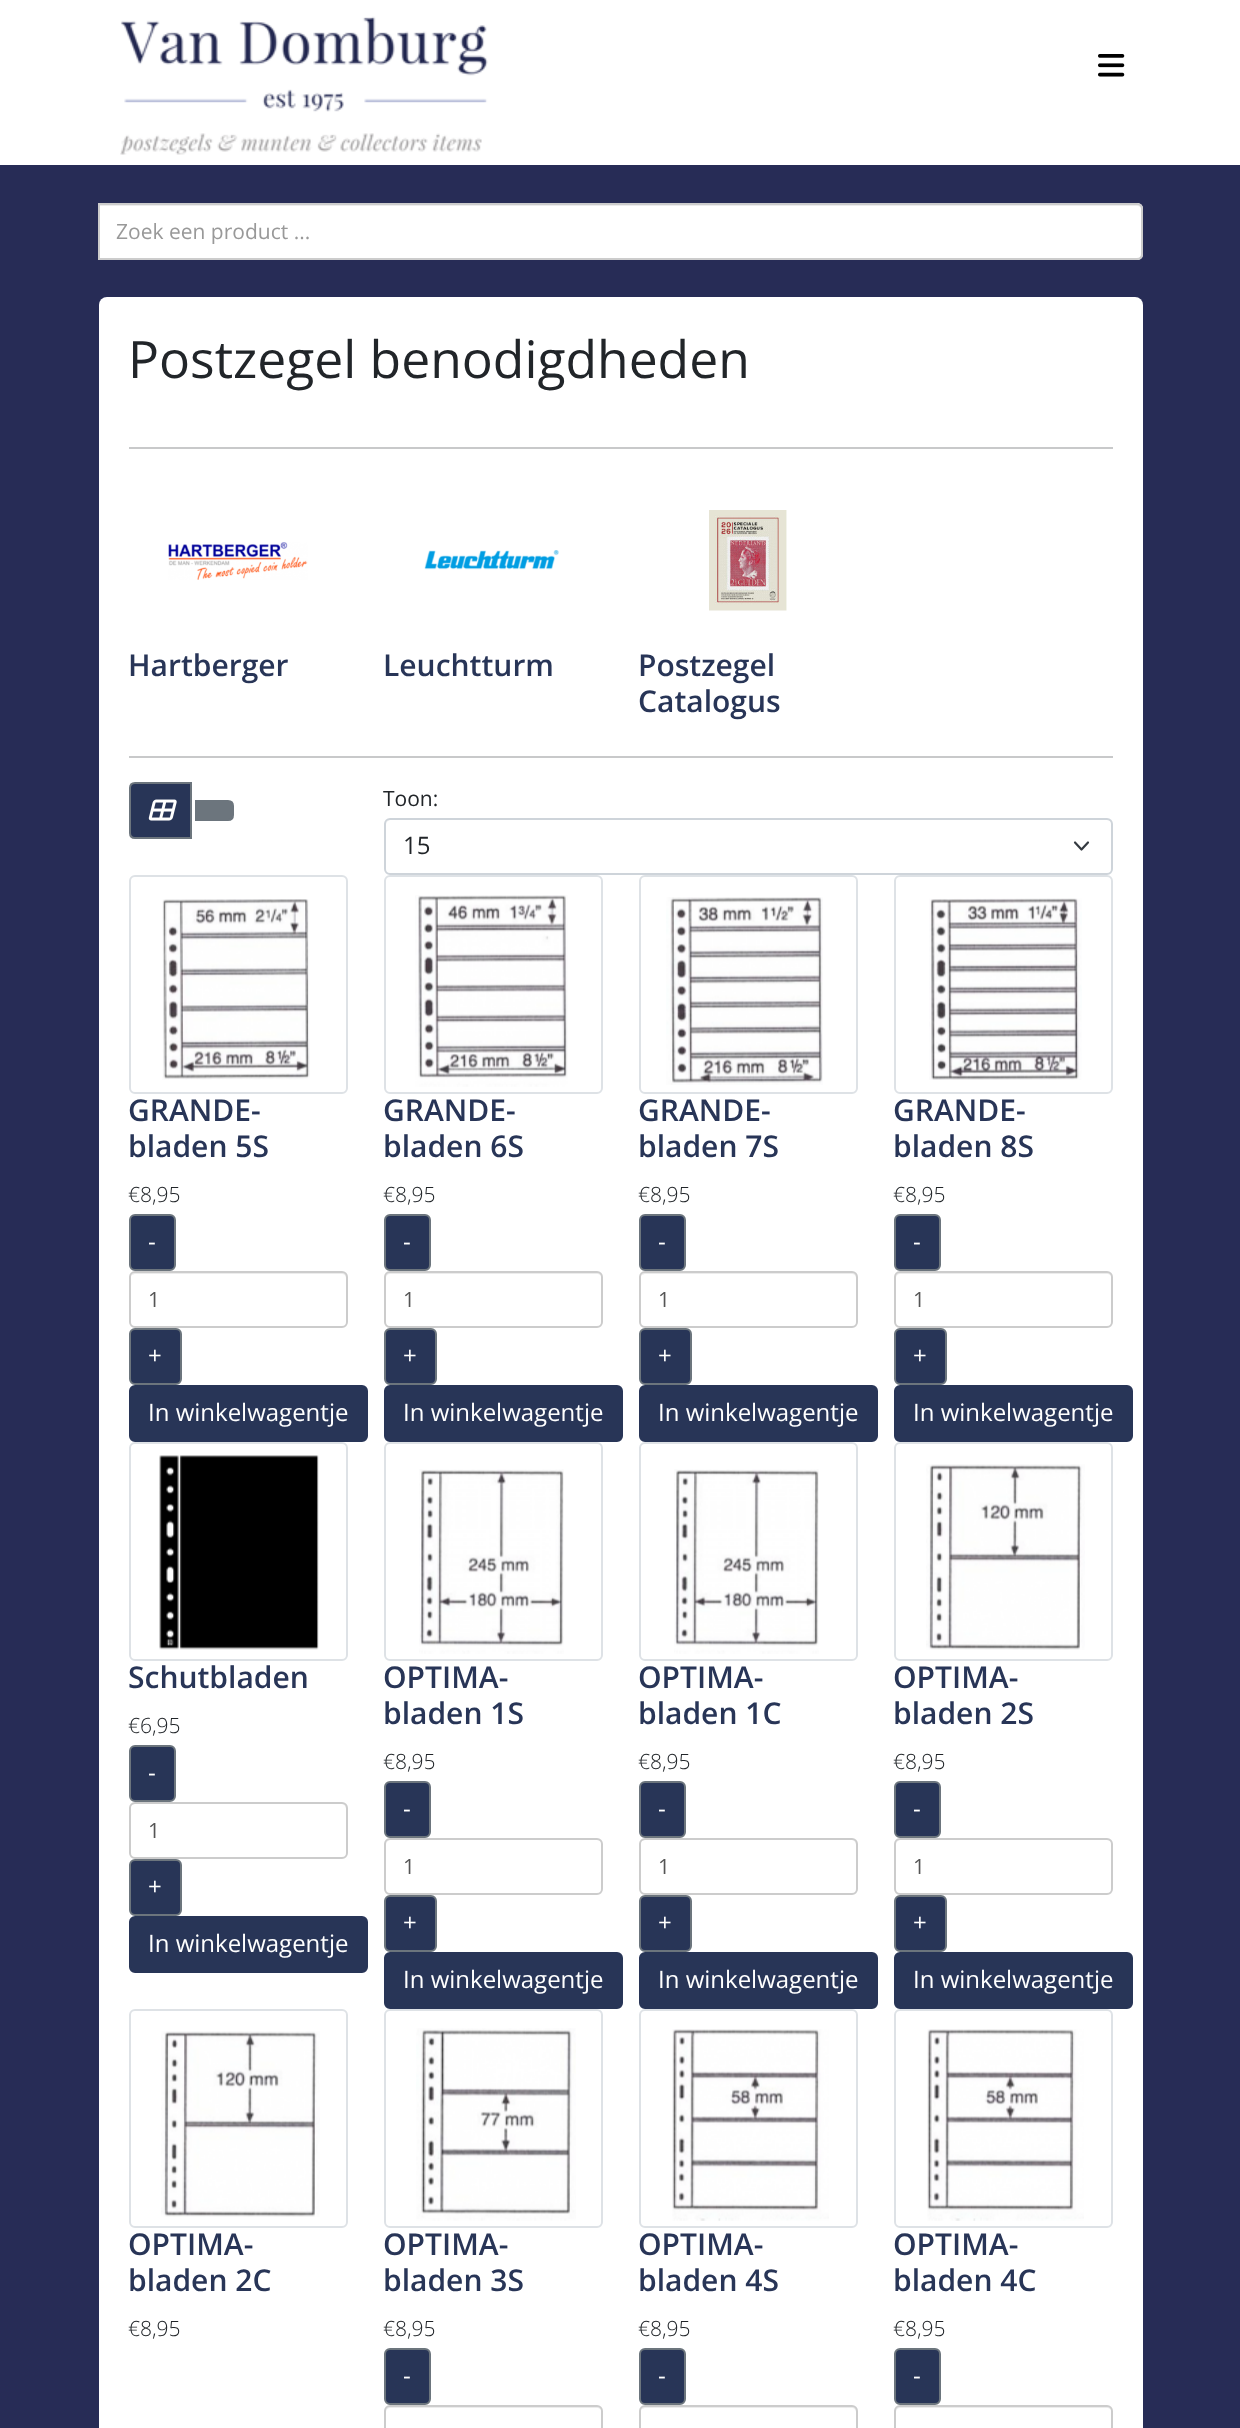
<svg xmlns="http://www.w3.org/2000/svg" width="1240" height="2428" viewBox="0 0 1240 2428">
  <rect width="100%" height="100%" fill="#272c56"/>
  <rect x="0" y="0" width="1240" height="165" fill="#ffffff"/>
  <image x="120" y="16" width="368" height="139" href="img1.png"/>
  <image x="1098" y="54" width="27" height="23" href="img2.png"/>
  <path d="M98 203H1137C1140.5 203 1143 205.5 1143 209V254C1143 257.5 1140.5 260 1137 260H98Z" fill="#ffffff"/>
  <path d="M99 206H1137C1139 206 1142 208 1142 210C1142 207 1140 204 1137 204H99Z" fill="#ececec"/>
  <path d="M99 204H1137C1140 204 1142 206 1142 209V254C1142 257 1140 259 1137 259H99Z" fill="none" stroke="#cccccc" stroke-width="2"/>
  <text x="116" y="239" font-family="Open Sans" font-size="21" fill="#999999">Zoek een product ...</text>
  <rect x="99" y="297" width="1044" height="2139" rx="8" fill="#ffffff"/>
  <text x="128" y="378" font-family="Open Sans" font-size="51.6" fill="#212529">Postzegel benodigdheden</text>
  <rect x="129" y="447" width="984" height="2" fill="#c8c9ca"/>
  <image x="168" y="542" width="140" height="38" href="img3.png"/>
  <text x="128" y="676" font-family="Open Sans" font-size="30" font-weight="600" fill="#283557">Hartberger</text>
  <image x="424" y="550" width="135" height="20" href="img4.png"/>
  <text x="383" y="676" font-family="Open Sans" font-size="30" font-weight="600" fill="#283557">Leuchtturm</text>
  <image x="709" y="510" width="78" height="101" href="img5.png"/>
  <text x="638" y="676" font-family="Open Sans" font-size="30" font-weight="600" fill="#283557">Postzegel</text>
  <text x="638" y="712" font-family="Open Sans" font-size="30" font-weight="600" fill="#283557">Catalogus</text>
  <rect x="129" y="756" width="984" height="2" fill="#c8c9ca"/>
  <path d="M135 783H191V838H135C132 838 130 836 130 833V788C130 785 132 783 135 783Z" fill="#283557" stroke="#6c757d" stroke-width="2"/>
  <image x="148" y="799" width="29" height="22" href="img6.png"/>
  <path d="M196 801H228C231 801 233 803 233 806V815C233 818 231 820 228 820H196Z" fill="#6c757d" stroke="#6c757d" stroke-width="2"/>
  <text x="383" y="806" font-family="Open Sans" font-size="21" fill="#212529">Toon:</text>
  <path d="M1075 842.5L1081.5 849.5L1088 842.5" fill="none" stroke="#343a40" stroke-width="2.2" stroke-linecap="round" stroke-linejoin="round"/>
  <path d="M390 820H1107C1109 820 1112 823 1112 825C1112 822 1110 819 1107 819H391C388 819 386 822 386 825C386 823 388 820 390 820Z" fill="#ececec"/>
  <rect x="385" y="819" width="727" height="55" rx="5" fill="none" stroke="#ced4da" stroke-width="2"/>
  <text x="403" y="854" font-family="Open Sans" font-size="24" fill="#212529">15</text>
  <rect x="130" y="876" width="217" height="217" rx="5" fill="none" stroke="#dee2e6" stroke-width="2"/>
  <image x="162" y="899" width="148" height="181" href="img7.png"/>
  <text x="128" y="1121" font-family="Open Sans" font-size="30" font-weight="600" fill="#283557">GRANDE-</text>
  <text x="128" y="1157" font-family="Open Sans" font-size="30" font-weight="600" fill="#283557">bladen 5S</text>
  <text x="128" y="1202" font-family="Open Sans" font-size="21" font-weight="300" fill="#212529">€8,95</text>
  <rect x="130" y="1215" width="45" height="55" rx="5" fill="#283557" stroke="#6c757d" stroke-width="2"/>
  <text x="148" y="1250" font-family="Open Sans" font-size="24" fill="#ffffff">-</text>
  <path d="M135 1274H342C344 1274 346 1276 346 1278V1324C347 1323 347 1322 347 1321V1277C347 1274 345 1272 342 1272H136C134 1272 132 1274 131 1276C132 1275 134 1274 135 1274Z" fill="#ececec"/>
  <rect x="130" y="1272" width="217" height="55" rx="5" fill="none" stroke="#cccccc" stroke-width="2"/>
  <text x="148" y="1307" font-family="Open Sans" font-size="21" fill="#555555">1</text>
  <rect x="130" y="1329" width="51" height="55" rx="5" fill="#283557" stroke="#6c757d" stroke-width="2"/>
  <text x="148" y="1364" font-family="Open Sans" font-size="24" fill="#ffffff">+</text>
  <rect x="130" y="1386" width="237" height="55" rx="5" fill="#283557" stroke="#283557" stroke-width="2"/>
  <text x="148" y="1421" font-family="Open Sans" font-size="24" fill="#ffffff">In winkelwagentje</text>
  <rect x="385" y="876" width="217" height="217" rx="5" fill="none" stroke="#dee2e6" stroke-width="2"/>
  <image x="415" y="895" width="153" height="192" href="img8.png"/>
  <text x="383" y="1121" font-family="Open Sans" font-size="30" font-weight="600" fill="#283557">GRANDE-</text>
  <text x="383" y="1157" font-family="Open Sans" font-size="30" font-weight="600" fill="#283557">bladen 6S</text>
  <text x="383" y="1202" font-family="Open Sans" font-size="21" font-weight="300" fill="#212529">€8,95</text>
  <rect x="385" y="1215" width="45" height="55" rx="5" fill="#283557" stroke="#6c757d" stroke-width="2"/>
  <text x="403" y="1250" font-family="Open Sans" font-size="24" fill="#ffffff">-</text>
  <path d="M390 1274H597C599 1274 602 1276 602 1278C602 1275 600 1272 597 1272H390C387 1273 386 1275 386 1278C386 1276 388 1274 390 1274Z" fill="#ececec"/>
  <rect x="385" y="1272" width="217" height="55" rx="5" fill="none" stroke="#cccccc" stroke-width="2"/>
  <text x="403" y="1307" font-family="Open Sans" font-size="21" fill="#555555">1</text>
  <rect x="385" y="1329" width="51" height="55" rx="5" fill="#283557" stroke="#6c757d" stroke-width="2"/>
  <text x="403" y="1364" font-family="Open Sans" font-size="24" fill="#ffffff">+</text>
  <rect x="385" y="1386" width="237" height="55" rx="5" fill="#283557" stroke="#283557" stroke-width="2"/>
  <text x="403" y="1421" font-family="Open Sans" font-size="24" fill="#ffffff">In winkelwagentje</text>
  <rect x="640" y="876" width="217" height="217" rx="5" fill="none" stroke="#dee2e6" stroke-width="2"/>
  <image x="666" y="897" width="157" height="188" href="img9.png"/>
  <text x="638" y="1121" font-family="Open Sans" font-size="30" font-weight="600" fill="#283557">GRANDE-</text>
  <text x="638" y="1157" font-family="Open Sans" font-size="30" font-weight="600" fill="#283557">bladen 7S</text>
  <text x="638" y="1202" font-family="Open Sans" font-size="21" font-weight="300" fill="#212529">€8,95</text>
  <rect x="640" y="1215" width="45" height="55" rx="5" fill="#283557" stroke="#6c757d" stroke-width="2"/>
  <text x="658" y="1250" font-family="Open Sans" font-size="24" fill="#ffffff">-</text>
  <path d="M645 1274H852C854 1274 856 1276 856 1278V1324C857 1323 857 1322 857 1321V1277C857 1274 855 1272 852 1272H646C644 1272 642 1274 641 1276C642 1275 644 1274 645 1274Z" fill="#ececec"/>
  <rect x="640" y="1272" width="217" height="55" rx="5" fill="none" stroke="#cccccc" stroke-width="2"/>
  <text x="658" y="1307" font-family="Open Sans" font-size="21" fill="#555555">1</text>
  <rect x="640" y="1329" width="51" height="55" rx="5" fill="#283557" stroke="#6c757d" stroke-width="2"/>
  <text x="658" y="1364" font-family="Open Sans" font-size="24" fill="#ffffff">+</text>
  <rect x="640" y="1386" width="237" height="55" rx="5" fill="#283557" stroke="#283557" stroke-width="2"/>
  <text x="658" y="1421" font-family="Open Sans" font-size="24" fill="#ffffff">In winkelwagentje</text>
  <rect x="895" y="876" width="217" height="217" rx="5" fill="none" stroke="#dee2e6" stroke-width="2"/>
  <image x="929" y="898" width="153" height="182" href="img10.png"/>
  <text x="893" y="1121" font-family="Open Sans" font-size="30" font-weight="600" fill="#283557">GRANDE-</text>
  <text x="893" y="1157" font-family="Open Sans" font-size="30" font-weight="600" fill="#283557">bladen 8S</text>
  <text x="893" y="1202" font-family="Open Sans" font-size="21" font-weight="300" fill="#212529">€8,95</text>
  <rect x="895" y="1215" width="45" height="55" rx="5" fill="#283557" stroke="#6c757d" stroke-width="2"/>
  <text x="913" y="1250" font-family="Open Sans" font-size="24" fill="#ffffff">-</text>
  <path d="M900 1274H1107C1109 1274 1112 1276 1112 1278C1112 1275 1110 1272 1107 1272H900C897 1273 896 1275 896 1278C896 1276 898 1274 900 1274Z" fill="#ececec"/>
  <rect x="895" y="1272" width="217" height="55" rx="5" fill="none" stroke="#cccccc" stroke-width="2"/>
  <text x="913" y="1307" font-family="Open Sans" font-size="21" fill="#555555">1</text>
  <rect x="895" y="1329" width="51" height="55" rx="5" fill="#283557" stroke="#6c757d" stroke-width="2"/>
  <text x="913" y="1364" font-family="Open Sans" font-size="24" fill="#ffffff">+</text>
  <rect x="895" y="1386" width="237" height="55" rx="5" fill="#283557" stroke="#283557" stroke-width="2"/>
  <text x="913" y="1421" font-family="Open Sans" font-size="24" fill="#ffffff">In winkelwagentje</text>
  <rect x="130" y="1443" width="217" height="217" rx="5" fill="none" stroke="#dee2e6" stroke-width="2"/>
  <image x="159" y="1455" width="160" height="195" href="img11.png"/>
  <text x="128" y="1688" font-family="Open Sans" font-size="30" font-weight="600" fill="#283557">Schutbladen</text>
  <text x="128" y="1733" font-family="Open Sans" font-size="21" font-weight="300" fill="#212529">€6,95</text>
  <rect x="130" y="1746" width="45" height="55" rx="5" fill="#283557" stroke="#6c757d" stroke-width="2"/>
  <text x="148" y="1781" font-family="Open Sans" font-size="24" fill="#ffffff">-</text>
  <path d="M135 1804H342C344 1804 346 1807 346 1809V1855C347 1854 347 1853 347 1852V1808C347 1805 345 1803 342 1803H136C134 1803 132 1804 131 1806C132 1805 134 1804 135 1804Z" fill="#ececec"/>
  <rect x="130" y="1803" width="217" height="55" rx="5" fill="none" stroke="#cccccc" stroke-width="2"/>
  <text x="148" y="1838" font-family="Open Sans" font-size="21" fill="#555555">1</text>
  <rect x="130" y="1860" width="51" height="55" rx="5" fill="#283557" stroke="#6c757d" stroke-width="2"/>
  <text x="148" y="1895" font-family="Open Sans" font-size="24" fill="#ffffff">+</text>
  <rect x="130" y="1917" width="237" height="55" rx="5" fill="#283557" stroke="#283557" stroke-width="2"/>
  <text x="148" y="1952" font-family="Open Sans" font-size="24" fill="#ffffff">In winkelwagentje</text>
  <rect x="385" y="1443" width="217" height="217" rx="5" fill="none" stroke="#dee2e6" stroke-width="2"/>
  <image x="419" y="1469" width="145" height="185" href="img12.png"/>
  <text x="383" y="1688" font-family="Open Sans" font-size="30" font-weight="600" fill="#283557">OPTIMA-</text>
  <text x="383" y="1724" font-family="Open Sans" font-size="30" font-weight="600" fill="#283557">bladen 1S</text>
  <text x="383" y="1769" font-family="Open Sans" font-size="21" font-weight="300" fill="#212529">€8,95</text>
  <rect x="385" y="1782" width="45" height="55" rx="5" fill="#283557" stroke="#6c757d" stroke-width="2"/>
  <text x="403" y="1817" font-family="Open Sans" font-size="24" fill="#ffffff">-</text>
  <path d="M390 1840H597C599 1840 602 1843 602 1845C602 1842 600 1839 597 1839H390C387 1840 386 1842 386 1845C386 1843 388 1840 390 1840Z" fill="#ececec"/>
  <rect x="385" y="1839" width="217" height="55" rx="5" fill="none" stroke="#cccccc" stroke-width="2"/>
  <text x="403" y="1874" font-family="Open Sans" font-size="21" fill="#555555">1</text>
  <rect x="385" y="1896" width="51" height="55" rx="5" fill="#283557" stroke="#6c757d" stroke-width="2"/>
  <text x="403" y="1931" font-family="Open Sans" font-size="24" fill="#ffffff">+</text>
  <rect x="385" y="1953" width="237" height="55" rx="5" fill="#283557" stroke="#283557" stroke-width="2"/>
  <text x="403" y="1988" font-family="Open Sans" font-size="24" fill="#ffffff">In winkelwagentje</text>
  <rect x="640" y="1443" width="217" height="217" rx="5" fill="none" stroke="#dee2e6" stroke-width="2"/>
  <image x="674" y="1469" width="145" height="185" href="img13.png"/>
  <text x="638" y="1688" font-family="Open Sans" font-size="30" font-weight="600" fill="#283557">OPTIMA-</text>
  <text x="638" y="1724" font-family="Open Sans" font-size="30" font-weight="600" fill="#283557">bladen 1C</text>
  <text x="638" y="1769" font-family="Open Sans" font-size="21" font-weight="300" fill="#212529">€8,95</text>
  <rect x="640" y="1782" width="45" height="55" rx="5" fill="#283557" stroke="#6c757d" stroke-width="2"/>
  <text x="658" y="1817" font-family="Open Sans" font-size="24" fill="#ffffff">-</text>
  <path d="M645 1840H852C854 1840 856 1843 856 1845V1891C857 1890 857 1889 857 1888V1844C857 1841 855 1839 852 1839H646C644 1839 642 1840 641 1842C642 1841 644 1840 645 1840Z" fill="#ececec"/>
  <rect x="640" y="1839" width="217" height="55" rx="5" fill="none" stroke="#cccccc" stroke-width="2"/>
  <text x="658" y="1874" font-family="Open Sans" font-size="21" fill="#555555">1</text>
  <rect x="640" y="1896" width="51" height="55" rx="5" fill="#283557" stroke="#6c757d" stroke-width="2"/>
  <text x="658" y="1931" font-family="Open Sans" font-size="24" fill="#ffffff">+</text>
  <rect x="640" y="1953" width="237" height="55" rx="5" fill="#283557" stroke="#283557" stroke-width="2"/>
  <text x="658" y="1988" font-family="Open Sans" font-size="24" fill="#ffffff">In winkelwagentje</text>
  <rect x="895" y="1443" width="217" height="217" rx="5" fill="none" stroke="#dee2e6" stroke-width="2"/>
  <image x="926" y="1464" width="159" height="186" href="img14.png"/>
  <text x="893" y="1688" font-family="Open Sans" font-size="30" font-weight="600" fill="#283557">OPTIMA-</text>
  <text x="893" y="1724" font-family="Open Sans" font-size="30" font-weight="600" fill="#283557">bladen 2S</text>
  <text x="893" y="1769" font-family="Open Sans" font-size="21" font-weight="300" fill="#212529">€8,95</text>
  <rect x="895" y="1782" width="45" height="55" rx="5" fill="#283557" stroke="#6c757d" stroke-width="2"/>
  <text x="913" y="1817" font-family="Open Sans" font-size="24" fill="#ffffff">-</text>
  <path d="M900 1840H1107C1109 1840 1112 1843 1112 1845C1112 1842 1110 1839 1107 1839H900C897 1840 896 1842 896 1845C896 1843 898 1840 900 1840Z" fill="#ececec"/>
  <rect x="895" y="1839" width="217" height="55" rx="5" fill="none" stroke="#cccccc" stroke-width="2"/>
  <text x="913" y="1874" font-family="Open Sans" font-size="21" fill="#555555">1</text>
  <rect x="895" y="1896" width="51" height="55" rx="5" fill="#283557" stroke="#6c757d" stroke-width="2"/>
  <text x="913" y="1931" font-family="Open Sans" font-size="24" fill="#ffffff">+</text>
  <rect x="895" y="1953" width="237" height="55" rx="5" fill="#283557" stroke="#283557" stroke-width="2"/>
  <text x="913" y="1988" font-family="Open Sans" font-size="24" fill="#ffffff">In winkelwagentje</text>
  <rect x="130" y="2010" width="217" height="217" rx="5" fill="none" stroke="#dee2e6" stroke-width="2"/>
  <image x="161" y="2031" width="159" height="186" href="img14.png"/>
  <text x="128" y="2255" font-family="Open Sans" font-size="30" font-weight="600" fill="#283557">OPTIMA-</text>
  <text x="128" y="2291" font-family="Open Sans" font-size="30" font-weight="600" fill="#283557">bladen 2C</text>
  <text x="128" y="2336" font-family="Open Sans" font-size="21" font-weight="300" fill="#212529">€8,95</text>
  <rect x="385" y="2010" width="217" height="217" rx="5" fill="none" stroke="#dee2e6" stroke-width="2"/>
  <image x="416" y="2028" width="160" height="193" href="img15.png"/>
  <text x="383" y="2255" font-family="Open Sans" font-size="30" font-weight="600" fill="#283557">OPTIMA-</text>
  <text x="383" y="2291" font-family="Open Sans" font-size="30" font-weight="600" fill="#283557">bladen 3S</text>
  <text x="383" y="2336" font-family="Open Sans" font-size="21" font-weight="300" fill="#212529">€8,95</text>
  <rect x="385" y="2349" width="45" height="55" rx="5" fill="#283557" stroke="#6c757d" stroke-width="2"/>
  <text x="403" y="2384" font-family="Open Sans" font-size="24" fill="#ffffff">-</text>
  <path d="M390 2408H597C599 2408 602 2410 602 2412C602 2409 600 2406 597 2406H390C387 2407 386 2409 386 2412C386 2410 388 2408 390 2408Z" fill="#ececec"/>
  <rect x="385" y="2406" width="217" height="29" rx="5" fill="none" stroke="#cccccc" stroke-width="2"/>
  <rect x="640" y="2010" width="217" height="217" rx="5" fill="none" stroke="#dee2e6" stroke-width="2"/>
  <image x="672" y="2029" width="157" height="192" href="img16.png"/>
  <text x="638" y="2255" font-family="Open Sans" font-size="30" font-weight="600" fill="#283557">OPTIMA-</text>
  <text x="638" y="2291" font-family="Open Sans" font-size="30" font-weight="600" fill="#283557">bladen 4S</text>
  <text x="638" y="2336" font-family="Open Sans" font-size="21" font-weight="300" fill="#212529">€8,95</text>
  <rect x="640" y="2349" width="45" height="55" rx="5" fill="#283557" stroke="#6c757d" stroke-width="2"/>
  <text x="658" y="2384" font-family="Open Sans" font-size="24" fill="#ffffff">-</text>
  <path d="M645 2408H852C854 2408 856 2410 856 2412V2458C857 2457 857 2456 857 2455V2411C857 2408 855 2406 852 2406H646C644 2406 642 2408 641 2410C642 2409 644 2408 645 2408Z" fill="#ececec"/>
  <rect x="640" y="2406" width="217" height="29" rx="5" fill="none" stroke="#cccccc" stroke-width="2"/>
  <rect x="895" y="2010" width="217" height="217" rx="5" fill="none" stroke="#dee2e6" stroke-width="2"/>
  <image x="927" y="2029" width="157" height="192" href="img17.png"/>
  <text x="893" y="2255" font-family="Open Sans" font-size="30" font-weight="600" fill="#283557">OPTIMA-</text>
  <text x="893" y="2291" font-family="Open Sans" font-size="30" font-weight="600" fill="#283557">bladen 4C</text>
  <text x="893" y="2336" font-family="Open Sans" font-size="21" font-weight="300" fill="#212529">€8,95</text>
  <rect x="895" y="2349" width="45" height="55" rx="5" fill="#283557" stroke="#6c757d" stroke-width="2"/>
  <text x="913" y="2384" font-family="Open Sans" font-size="24" fill="#ffffff">-</text>
  <path d="M900 2408H1107C1109 2408 1112 2410 1112 2412C1112 2409 1110 2406 1107 2406H900C897 2407 896 2409 896 2412C896 2410 898 2408 900 2408Z" fill="#ececec"/>
  <rect x="895" y="2406" width="217" height="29" rx="5" fill="none" stroke="#cccccc" stroke-width="2"/>
</svg>
